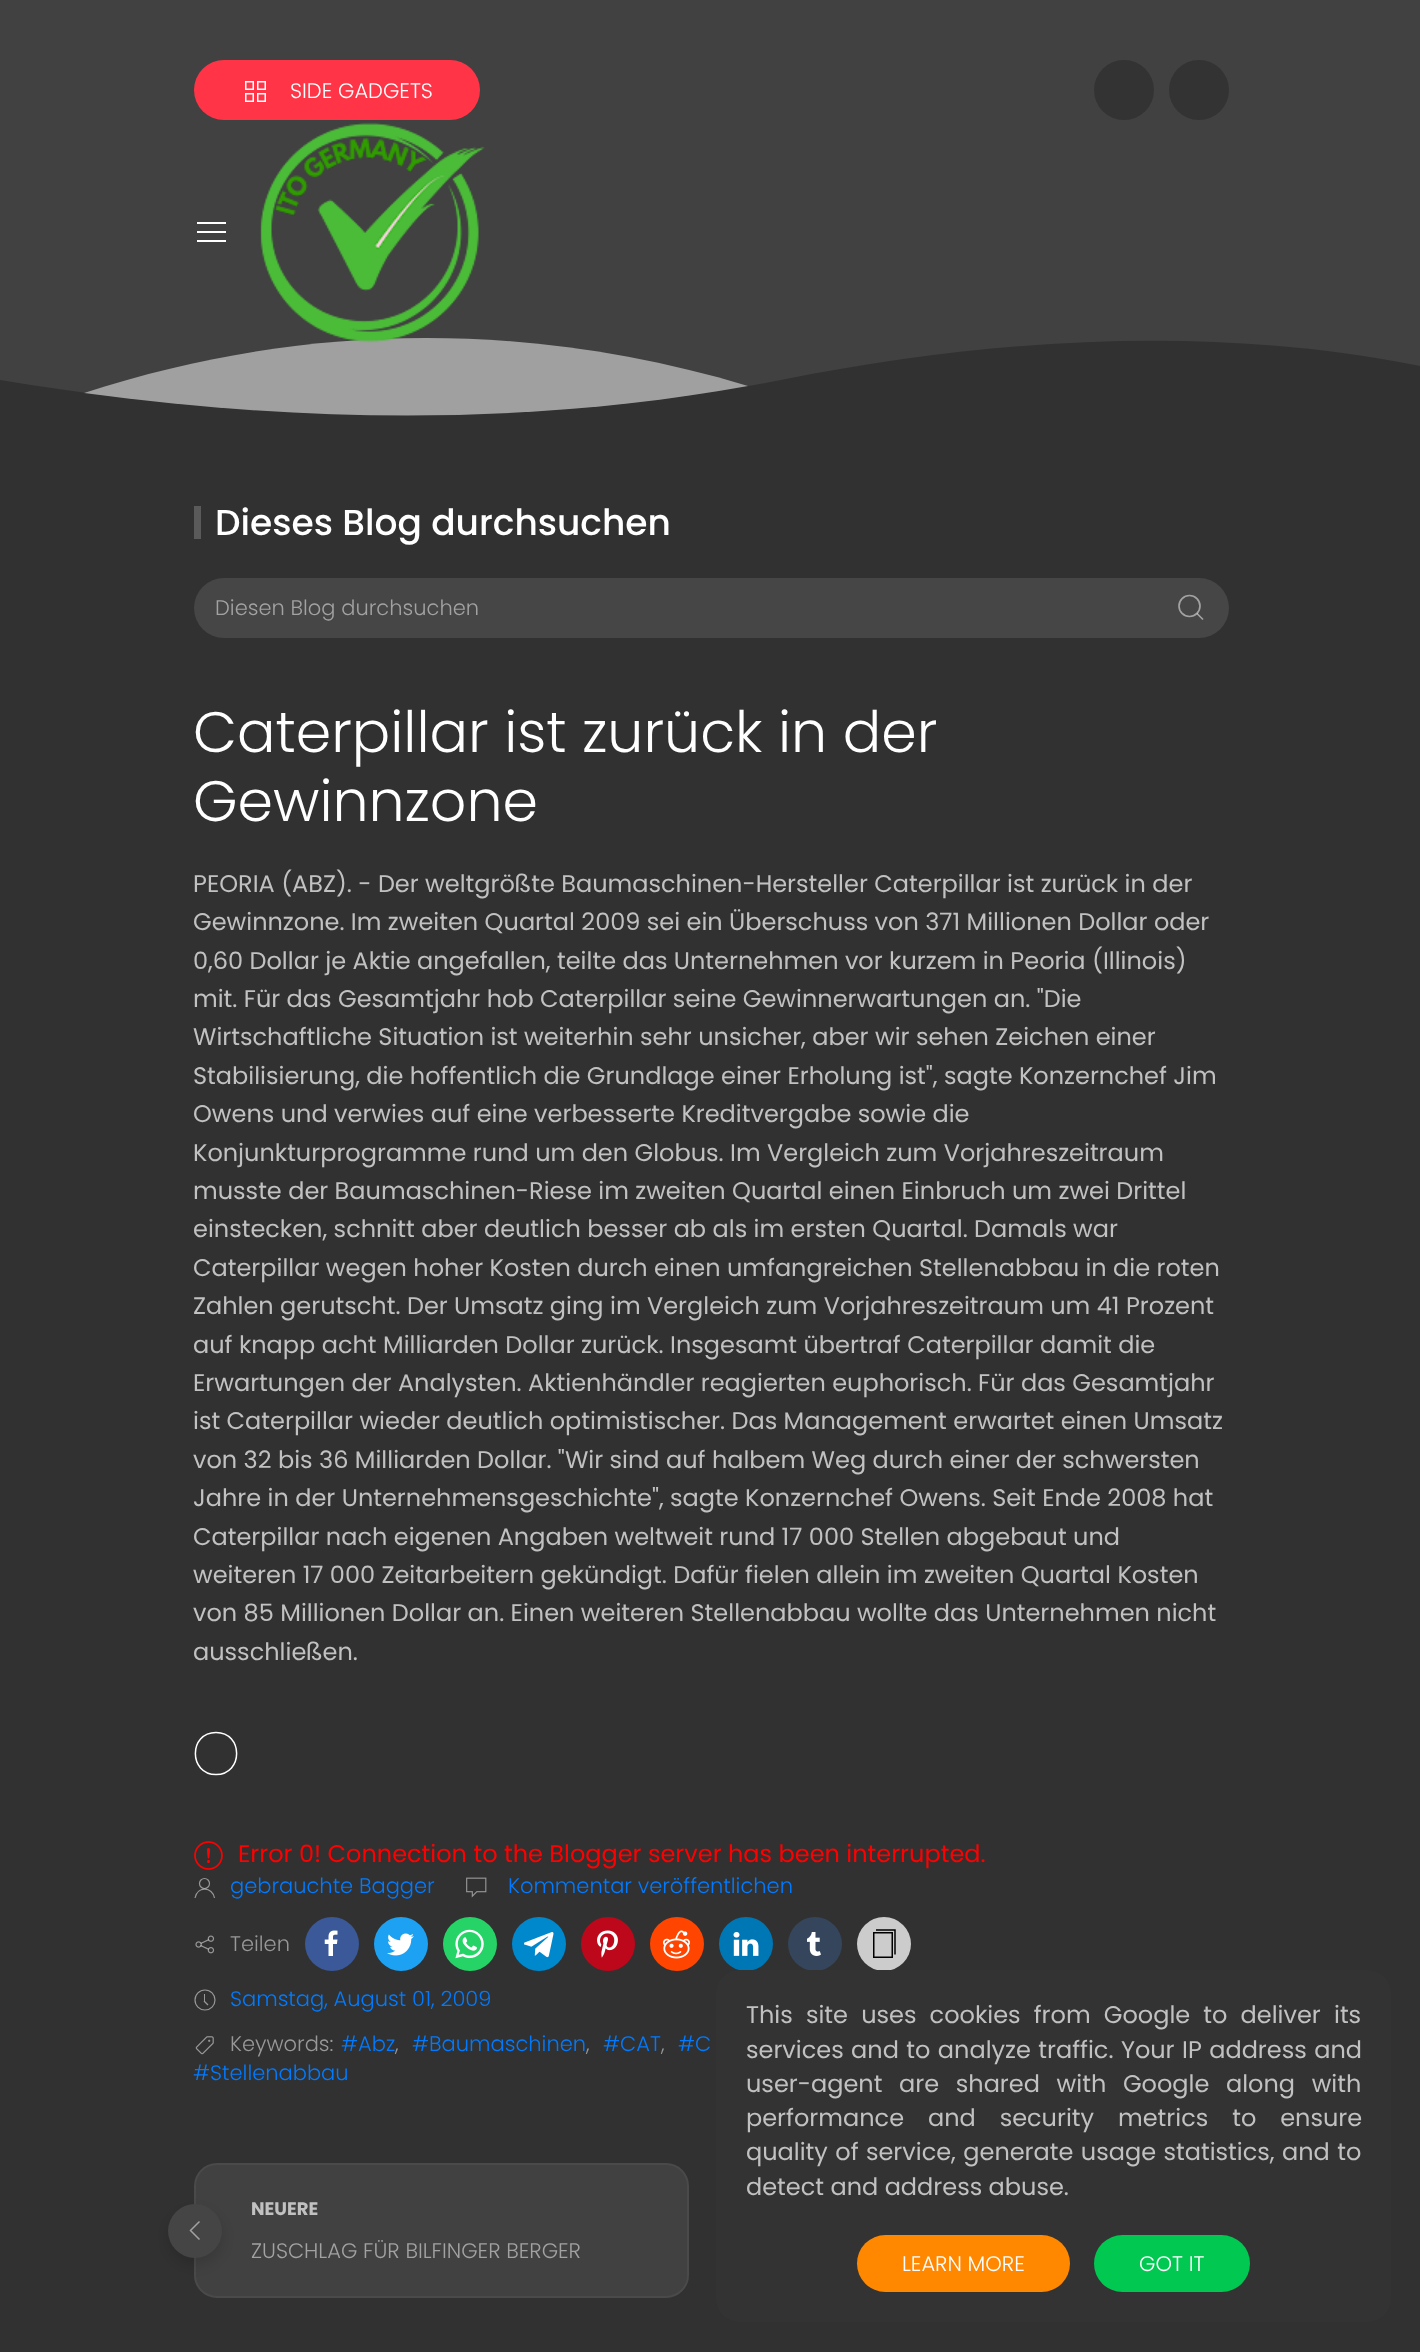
<svg xmlns="http://www.w3.org/2000/svg" width="1420" height="2352" viewBox="0 0 1420 2352">
  <defs>
    <clipPath id="clip1"><rect x="0" y="338" width="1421" height="85"/></clipPath>
    <filter id="blur1" x="-50%" y="-200%" width="200%" height="500%"><feGaussianBlur stdDeviation="7.5"/></filter>
  </defs>
  <rect width="100%" height="100%" fill="#313131"/>
  <rect x="0" y="0" width="1420" height="338" fill="#414141"/>
  <rect x="194" y="60" width="286" height="60" rx="30" fill="#ff3547"/>
  <rect x="245.75" y="81.75" width="7.5" height="7.5" fill="none" stroke="#ffffff" stroke-width="1.5"/>
  <rect x="257.75" y="81.75" width="7.5" height="7.5" fill="none" stroke="#ffffff" stroke-width="1.5"/>
  <rect x="245.75" y="93.75" width="7.5" height="7.5" fill="none" stroke="#ffffff" stroke-width="1.5"/>
  <rect x="257.75" y="93.75" width="7.5" height="7.5" fill="none" stroke="#ffffff" stroke-width="1.5"/>
  <text x="290" y="98" font-family="Poppins" font-size="21" font-weight="300" fill="#ffffff">SIDE GADGETS</text>
  <circle cx="1124" cy="90" r="30" fill="#333333"/>
  <circle cx="1199" cy="90" r="30" fill="#333333"/>
  <rect x="197" y="222" width="29" height="2" fill="#ffffff"/>
  <rect x="197" y="231" width="29" height="2" fill="#ffffff"/>
  <rect x="197" y="240" width="29" height="2" fill="#ffffff"/>
  <g clip-path="url(#clip1)">
    <path d="M0 323V380C284 427 544 427 781 380C1018 333 1231 328 1420 366V323Z" fill="#414141"/>
  </g>
  <path d="M426 338C533 338 641 354 748 386C544 423 322 425 84 393C198 356 312 338 426 338Z" fill="#ffffff" fill-opacity="0.5"/>
  <image x="260" y="122" width="225" height="221" href="img1.png"/>
  <rect x="194" y="506" width="7" height="33" fill="#5a5a5a"/>
  <text x="215" y="535" font-family="Poppins" font-size="36" font-weight="500" fill="#ffffff">Dieses Blog durchsuchen</text>
  <rect x="194" y="578" width="1035" height="60" rx="30" fill="#ffffff" fill-opacity="0.1"/>
  <text x="215" y="615" font-family="Poppins" font-size="21" font-weight="300" fill="#a2a2a2">Diesen Blog durchsuchen</text>
  <circle cx="1189.5" cy="606" r="10.5" fill="none" stroke="#a2a2a2" stroke-width="1.7"/>
  <path d="M1197 613.5L1203 619.5Z" fill="none" stroke="#ffffff" stroke-opacity="0.5" stroke-width="1.7"/>
  <text x="193" y="752" font-family="Poppins" font-size="57" font-weight="300" fill="#ffffff">Caterpillar ist zurück in der</text>
  <text x="193" y="821" font-family="Poppins" font-size="57" font-weight="300" fill="#ffffff">Gewinnzone</text>
  <text x="193" y="892" font-family="Poppins" font-size="24" fill="#c1c1c1">PEORIA (ABZ). - Der weltgrößte Baumaschinen-Hersteller Caterpillar ist zurück in der</text>
  <text x="193" y="930" font-family="Poppins" font-size="24" fill="#c1c1c1">Gewinnzone. Im zweiten Quartal 2009 sei ein Überschuss von 371 Millionen Dollar oder</text>
  <text x="193" y="969" font-family="Poppins" font-size="24" fill="#c1c1c1">0,60 Dollar je Aktie angefallen, teilte das Unternehmen vor kurzem in Peoria (Illinois)</text>
  <text x="193" y="1007" font-family="Poppins" font-size="24" fill="#c1c1c1">mit. Für das Gesamtjahr hob Caterpillar seine Gewinnerwartungen an. "Die</text>
  <text x="193" y="1045" font-family="Poppins" font-size="24" fill="#c1c1c1">Wirtschaftliche Situation ist weiterhin sehr unsicher, aber wir sehen Zeichen einer</text>
  <text x="193" y="1084" font-family="Poppins" font-size="24" fill="#c1c1c1">Stabilisierung, die hoffentlich die Grundlage einer Erholung ist", sagte Konzernchef Jim</text>
  <text x="193" y="1122" font-family="Poppins" font-size="24" fill="#c1c1c1">Owens und verwies auf eine verbesserte Kreditvergabe sowie die</text>
  <text x="193" y="1161" font-family="Poppins" font-size="24" fill="#c1c1c1">Konjunkturprogramme rund um den Globus. Im Vergleich zum Vorjahreszeitraum</text>
  <text x="193" y="1199" font-family="Poppins" font-size="24" fill="#c1c1c1">musste der Baumaschinen-Riese im zweiten Quartal einen Einbruch um zwei Drittel</text>
  <text x="193" y="1237" font-family="Poppins" font-size="24" fill="#c1c1c1">einstecken, schnitt aber deutlich besser ab als im ersten Quartal. Damals war</text>
  <text x="193" y="1276" font-family="Poppins" font-size="24" fill="#c1c1c1">Caterpillar wegen hoher Kosten durch einen umfangreichen Stellenabbau in die roten</text>
  <text x="193" y="1314" font-family="Poppins" font-size="24" fill="#c1c1c1">Zahlen gerutscht. Der Umsatz ging im Vergleich zum Vorjahreszeitraum um 41 Prozent</text>
  <text x="193" y="1353" font-family="Poppins" font-size="24" fill="#c1c1c1">auf knapp acht Milliarden Dollar zurück. Insgesamt übertraf Caterpillar damit die</text>
  <text x="193" y="1391" font-family="Poppins" font-size="24" fill="#c1c1c1">Erwartungen der Analysten. Aktienhändler reagierten euphorisch. Für das Gesamtjahr</text>
  <text x="193" y="1429" font-family="Poppins" font-size="24" fill="#c1c1c1">ist Caterpillar wieder deutlich optimistischer. Das Management erwartet einen Umsatz</text>
  <text x="193" y="1468" font-family="Poppins" font-size="24" fill="#c1c1c1">von 32 bis 36 Milliarden Dollar. "Wir sind auf halbem Weg durch einer der schwersten</text>
  <text x="193" y="1506" font-family="Poppins" font-size="24" fill="#c1c1c1">Jahre in der Unternehmensgeschichte", sagte Konzernchef Owens. Seit Ende 2008 hat</text>
  <text x="193" y="1545" font-family="Poppins" font-size="24" fill="#c1c1c1">Caterpillar nach eigenen Angaben weltweit rund 17 000 Stellen abgebaut und</text>
  <text x="193" y="1583" font-family="Poppins" font-size="24" fill="#c1c1c1">weiteren 17 000 Zeitarbeitern gekündigt. Dafür fielen allein im zweiten Quartal Kosten</text>
  <text x="193" y="1621" font-family="Poppins" font-size="24" fill="#c1c1c1">von 85 Millionen Dollar an. Einen weiteren Stellenabbau wollte das Unternehmen nicht</text>
  <text x="193" y="1660" font-family="Poppins" font-size="24" fill="#c1c1c1">ausschließen.</text>
  <path d="M216 1732.5C243.5 1732.5 243.5 1774.5 216 1774.5C188.5 1774.5 188.5 1732.5 216 1732.5" fill="none" stroke="#ffffff" stroke-width="1.5" stroke-linecap="round"/>
  <image x="194" y="1841" width="29" height="29" href="img2.png"/>
  <text x="238" y="1862" font-family="Poppins" font-size="24" fill="#ff0000">Error 0! Connection to the Blogger server has been interrupted.</text>
  <circle cx="204.5" cy="1883.5" r="5" fill="none" stroke="#989898" stroke-width="1.2"/>
  <path d="M195 1898C197.5 1886 212.5 1886.5 214.5 1898" fill="none" stroke="#ffffff" stroke-opacity="0.5" stroke-width="1.2"/>
  <text x="230" y="1893" font-family="Poppins" font-size="21" font-weight="300" fill="#007bff">gebrauchte Bagger</text>
  <image x="466" y="1877" width="21" height="21" href="img3.png"/>
  <text x="508" y="1893" font-family="Poppins" font-size="21" font-weight="300" fill="#007bff">Kommentar veröffentlichen</text>
  <image x="195" y="1935" width="20" height="19" href="img4.png"/>
  <text x="230" y="1951" font-family="Poppins" font-size="21" font-weight="300" fill="#989898">Teilen</text>
  <circle cx="332" cy="1944" r="27" fill="#3b5998"/>
  <image x="324" y="1930" width="14" height="26" href="img5.png"/>
  <circle cx="401" cy="1944" r="27" fill="#1da1f2"/>
  <image x="387" y="1933" width="27" height="23" href="img6.png"/>
  <circle cx="470" cy="1944" r="27" fill="#25d366"/>
  <image x="455" y="1929" width="29" height="30" href="img7.png"/>
  <circle cx="539" cy="1944" r="27" fill="#0088cc"/>
  <image x="524" y="1932" width="30" height="26" href="img8.png"/>
  <circle cx="608" cy="1944" r="27" fill="#bd081c"/>
  <image x="597" y="1930" width="21" height="28" href="img9.png"/>
  <circle cx="677" cy="1944" r="27" fill="#ff4500"/>
  <image x="663" y="1930" width="27" height="29" href="img10.png"/>
  <circle cx="746" cy="1944" r="27" fill="#0077b5"/>
  <image x="733" y="1932" width="26" height="24" href="img11.png"/>
  <circle cx="815" cy="1944" r="27" fill="#35465c"/>
  <image x="807" y="1932" width="14" height="24" href="img12.png"/>
  <circle cx="884" cy="1944" r="27" fill="#cccccc"/>
  <rect x="873.75" y="1932.75" width="18.5" height="24.5" fill="none" stroke="#000000" stroke-width="1.5"/>
  <path d="M876 1930H895V1954.5" fill="none" stroke="#000000" stroke-width="1.5"/>
  <circle cx="205" cy="2000" r="10" fill="none" stroke="#989898" stroke-width="1.2"/>
  <rect x="204" y="1994" width="1" height="7" fill="#989898"/>
  <path d="M208 2005L204 2001" fill="none" stroke="#989898" stroke-width="1.2"/>
  <text x="230" y="2006" font-family="Poppins" font-size="21" font-weight="300" fill="#007bff">Samstag, August 01, 2009</text>
  <image x="195" y="2036" width="19" height="19" href="img13.png"/>
  <text x="230" y="2051" font-family="Poppins" font-size="21" font-weight="300" fill="#989898">Keywords:</text>
  <text x="341" y="2051" font-family="Poppins" font-size="21" font-weight="300" fill="#007bff">#Abz</text>
  <text x="395" y="2051" font-family="Poppins" font-size="21" font-weight="300" fill="#989898">,</text>
  <text x="412" y="2051" font-family="Poppins" font-size="21" font-weight="300" fill="#007bff">#Baumaschinen</text>
  <text x="586" y="2051" font-family="Poppins" font-size="21" font-weight="300" fill="#989898">,</text>
  <text x="603" y="2051" font-family="Poppins" font-size="21" font-weight="300" fill="#007bff">#CAT</text>
  <text x="661" y="2051" font-family="Poppins" font-size="21" font-weight="300" fill="#989898">,</text>
  <text x="678" y="2051" font-family="Poppins" font-size="21" font-weight="300" fill="#007bff">#C</text>
  <text x="193" y="2080" font-family="Poppins" font-size="21" font-weight="300" fill="#007bff">#Stellenabbau</text>
  <rect x="195" y="2164" width="493" height="133" rx="22" fill="#414141" stroke="#4a4a4a" stroke-width="2"/>
  <rect x="168" y="2211" width="54" height="54" rx="27" fill="#000000" fill-opacity="0.15" filter="url(#blur1)"/>
  <circle cx="195" cy="2231" r="27" fill="#454545"/>
  <path d="M199.5 2239.5L190.5 2230.5L199.5 2221.5" fill="none" stroke="#a2a2a2" stroke-width="1.5"/>
  <text x="251" y="2215" font-family="Poppins" font-size="18" font-weight="bold" fill="#c1c1c1">NEUERE</text>
  <text x="251" y="2258" font-family="Poppins" font-size="21" font-weight="300" fill="#a2a2a2">ZUSCHLAG FÜR BILFINGER BERGER</text>
  <rect x="716" y="1970" width="675" height="352" rx="23" fill="#333333"/>
  <text x="746" y="2023" word-spacing="6.75" font-family="Poppins" font-size="24" fill="#c1c1c1">This site uses cookies from Google to deliver its</text>
  <text x="746" y="2058" word-spacing="1" font-family="Poppins" font-size="24" fill="#c1c1c1">services and to analyze traffic. Your IP address and</text>
  <text x="746" y="2092" word-spacing="10.25" font-family="Poppins" font-size="24" fill="#c1c1c1">user-agent are shared with Google along with</text>
  <text x="746" y="2126" word-spacing="17.5" font-family="Poppins" font-size="24" fill="#c1c1c1">performance and security metrics to ensure</text>
  <text x="746" y="2160" word-spacing="1" font-family="Poppins" font-size="24" fill="#c1c1c1">quality of service, generate usage statistics, and to</text>
  <text x="746" y="2195" font-family="Poppins" font-size="24" fill="#c1c1c1">detect and address abuse.</text>
  <rect x="857" y="2235" width="213" height="57" rx="28.5" fill="#ff8800"/>
  <text x="902" y="2271" font-family="Poppins" font-size="21" font-weight="300" fill="#ffffff">LEARN MORE</text>
  <rect x="1094" y="2235" width="156" height="57" rx="28.5" fill="#00c851"/>
  <text x="1139" y="2271" font-family="Poppins" font-size="21" font-weight="300" fill="#ffffff">GOT IT</text>
</svg>
